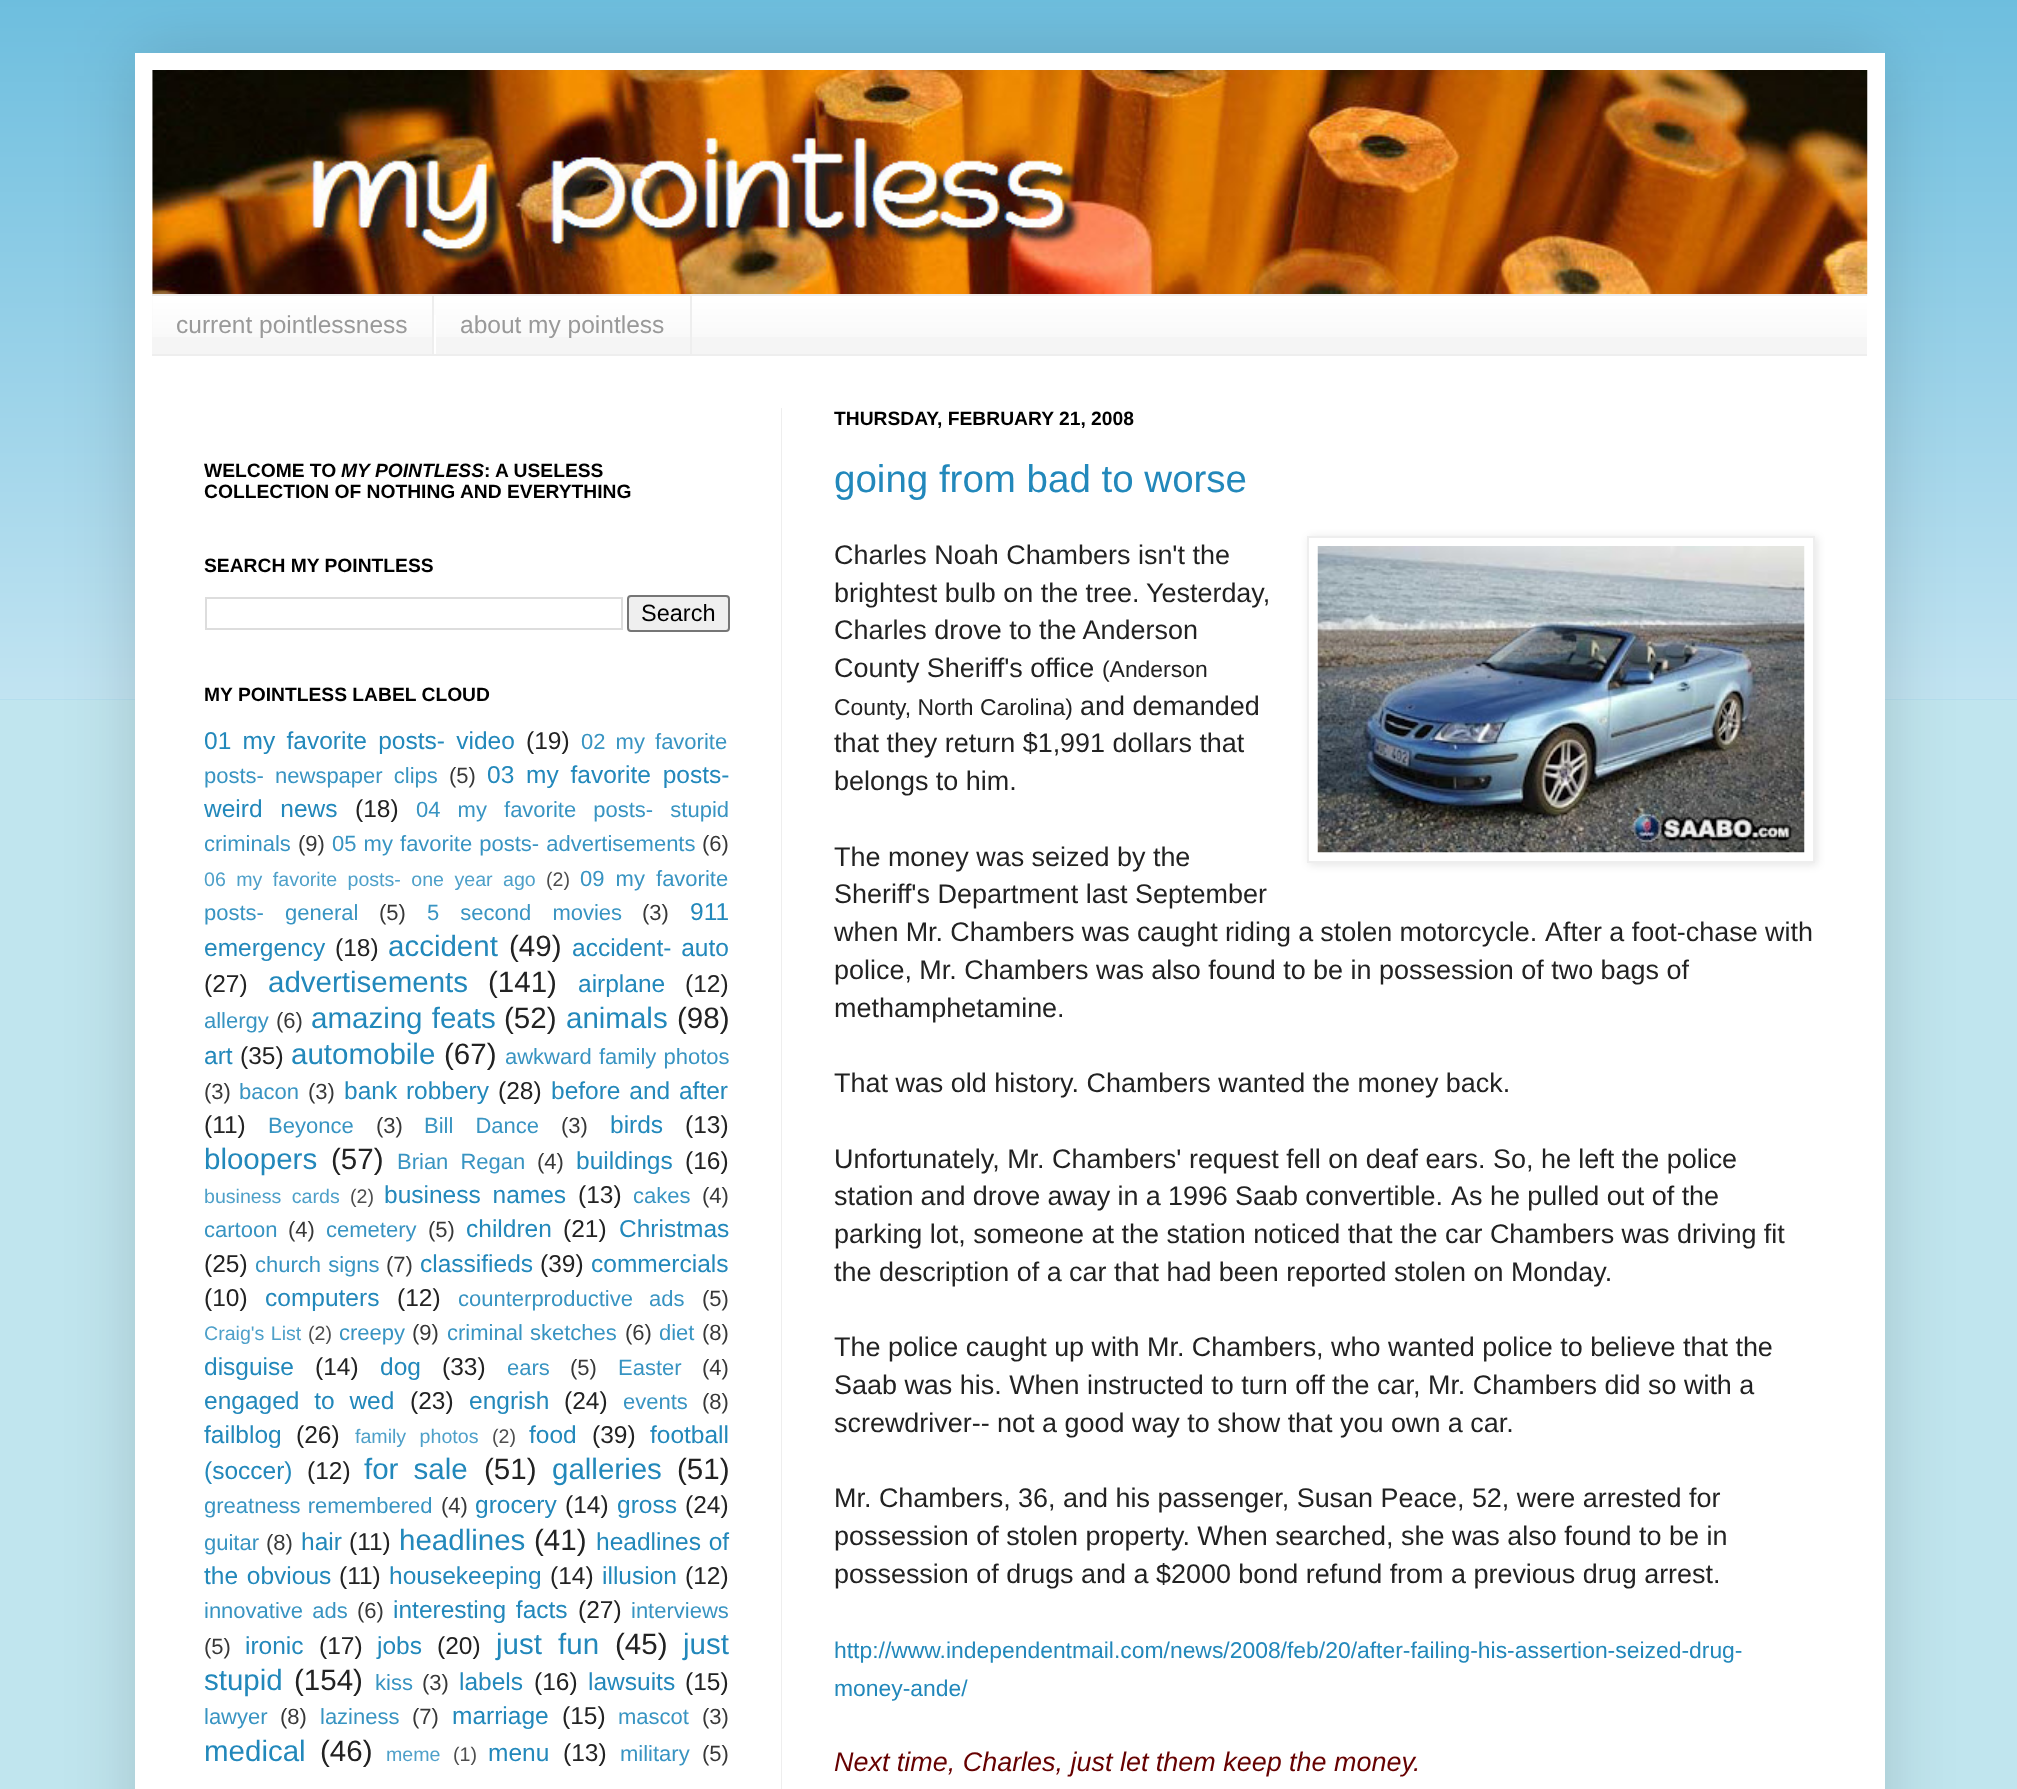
<svg xmlns="http://www.w3.org/2000/svg" width="2017" height="1789" viewBox="0 0 2017 1789">
  <defs>
    <filter id="blur1" x="-50%" y="-200%" width="200%" height="500%"><feGaussianBlur stdDeviation="35"/></filter>
    <filter id="blur2" x="-50%" y="-200%" width="200%" height="500%"><feGaussianBlur stdDeviation="4.5"/></filter>
  </defs>
  <rect width="100%" height="100%" fill="#c0e5ee"/>
  <rect x="0" y="0" width="2017" height="700" fill="#66bbdd"/>
  <image x="0" y="0" width="2017" height="700" href="img1.png"/>
  <rect x="135" y="53" width="1750" height="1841" fill="#000000" fill-opacity="0.15" filter="url(#blur1)"/>
  <rect x="135" y="53" width="1750" height="1736" fill="#ffffff"/>
  <image x="152" y="70" width="1716" height="224" href="img2.png"/>
  <rect x="152" y="296" width="1715" height="58" fill="#f5f5f5"/>
  <image x="152" y="296" width="1715" height="41" href="img3.png"/>
  <rect x="152" y="294" width="1715" height="2" fill="#eeeeee"/>
  <rect x="152" y="354" width="1715" height="2" fill="#eeeeee"/>
  <rect x="432" y="296" width="2" height="58" fill="#eeeeee"/>
  <text x="176" y="333" font-family="Liberation Sans" font-size="24.5" fill="#999999">current pointlessness</text>
  <rect x="690" y="296" width="2" height="58" fill="#eeeeee"/>
  <rect x="434" y="315" width="2" height="39" fill="#ffffff"/>
  <text x="460" y="333" font-family="Liberation Sans" font-size="24.5" fill="#999999">about my pointless</text>
  <rect x="781" y="408" width="1" height="1381" fill="#eeeeee"/>
  <text x="204" y="477" font-family="Liberation Sans" font-size="19.25" font-weight="bold" fill="#000000">WELCOME TO</text>
  <text x="341" y="477" font-family="Liberation Sans" font-size="19.25" font-weight="bold" font-style="italic" fill="#000000">MY POINTLESS</text>
  <text x="484" y="477" font-family="Liberation Sans" font-size="19.25" font-weight="bold" fill="#000000">: A USELESS</text>
  <text x="204" y="498" font-family="Liberation Sans" font-size="19.25" font-weight="bold" fill="#000000">COLLECTION OF NOTHING AND EVERYTHING</text>
  <text x="204" y="572" font-family="Liberation Sans" font-size="19.25" font-weight="bold" fill="#000000">SEARCH MY POINTLESS</text>
  <rect x="206" y="598" width="416" height="31" fill="none" stroke="#dddddd" stroke-width="2"/>
  <rect x="628" y="596" width="101" height="35" rx="3" fill="#efefef" stroke="#767676" stroke-width="2"/>
  <text x="641" y="621" font-family="Liberation Sans" font-size="23.5" fill="#000000">Search</text>
  <text x="204" y="701" font-family="Liberation Sans" font-size="19.25" font-weight="bold" fill="#000000">MY POINTLESS LABEL CLOUD</text>
  <text x="204" y="749" word-spacing="4.5" font-family="Liberation Sans" font-size="24.5" fill="#2288bb">01 my favorite posts- video</text>
  <text x="526" y="749" font-family="Liberation Sans" font-size="24.5" fill="#222222">(19)</text>
  <text x="581" y="749" word-spacing="4" font-family="Liberation Sans" font-size="22" fill="#3894c2">02 my favorite</text>
  <text x="204" y="783" word-spacing="5" font-family="Liberation Sans" font-size="22" fill="#3894c2">posts- newspaper clips</text>
  <text x="449" y="783" font-family="Liberation Sans" font-size="22" fill="#383838">(5)</text>
  <text x="487" y="783" word-spacing="5" font-family="Liberation Sans" font-size="24.5" fill="#2288bb">03 my favorite posts-</text>
  <text x="204" y="817" word-spacing="11" font-family="Liberation Sans" font-size="24.5" fill="#2288bb">weird news</text>
  <text x="355" y="817" font-family="Liberation Sans" font-size="24.5" fill="#222222">(18)</text>
  <text x="416" y="817" word-spacing="11" font-family="Liberation Sans" font-size="22" fill="#3894c2">04 my favorite posts- stupid</text>
  <text x="204" y="851" font-family="Liberation Sans" font-size="22" fill="#3894c2">criminals</text>
  <text x="298" y="851" font-family="Liberation Sans" font-size="22" fill="#383838">(9)</text>
  <text x="332" y="851" word-spacing="1" font-family="Liberation Sans" font-size="22" fill="#3894c2">05 my favorite posts- advertisements</text>
  <text x="702" y="851" font-family="Liberation Sans" font-size="22" fill="#383838">(6)</text>
  <text x="204" y="886" word-spacing="5" font-family="Liberation Sans" font-size="19.6" fill="#4ea0c9">06 my favorite posts- one year ago</text>
  <text x="546" y="886" font-family="Liberation Sans" font-size="19.6" fill="#4e4e4e">(2)</text>
  <text x="580" y="886" word-spacing="5" font-family="Liberation Sans" font-size="22" fill="#3894c2">09 my favorite</text>
  <text x="204" y="920" word-spacing="15" font-family="Liberation Sans" font-size="22" fill="#3894c2">posts- general</text>
  <text x="379" y="920" font-family="Liberation Sans" font-size="22" fill="#383838">(5)</text>
  <text x="427" y="920" word-spacing="15" font-family="Liberation Sans" font-size="22" fill="#3894c2">5 second movies</text>
  <text x="642" y="920" font-family="Liberation Sans" font-size="22" fill="#383838">(3)</text>
  <text x="690" y="920" font-family="Liberation Sans" font-size="24.5" fill="#2288bb">911</text>
  <text x="204" y="956" font-family="Liberation Sans" font-size="24.5" fill="#2288bb">emergency</text>
  <text x="335" y="956" font-family="Liberation Sans" font-size="24.5" fill="#222222">(18)</text>
  <text x="388" y="956" font-family="Liberation Sans" font-size="29.5" fill="#2288bb">accident</text>
  <text x="509" y="956" font-family="Liberation Sans" font-size="29.5" fill="#222222">(49)</text>
  <text x="572" y="956" word-spacing="3" font-family="Liberation Sans" font-size="24.5" fill="#2288bb">accident- auto</text>
  <text x="204" y="992" font-family="Liberation Sans" font-size="24.5" fill="#222222">(27)</text>
  <text x="268" y="992" font-family="Liberation Sans" font-size="29.5" fill="#2288bb">advertisements</text>
  <text x="488" y="992" font-family="Liberation Sans" font-size="29.5" fill="#222222">(141)</text>
  <text x="578" y="992" font-family="Liberation Sans" font-size="24.5" fill="#2288bb">airplane</text>
  <text x="685" y="992" font-family="Liberation Sans" font-size="24.5" fill="#222222">(12)</text>
  <text x="204" y="1028" font-family="Liberation Sans" font-size="22" fill="#3894c2">allergy</text>
  <text x="276" y="1028" font-family="Liberation Sans" font-size="22" fill="#383838">(6)</text>
  <text x="311" y="1028" word-spacing="1" font-family="Liberation Sans" font-size="29.5" fill="#2288bb">amazing feats</text>
  <text x="504" y="1028" font-family="Liberation Sans" font-size="29.5" fill="#222222">(52)</text>
  <text x="566" y="1028" font-family="Liberation Sans" font-size="29.5" fill="#2288bb">animals</text>
  <text x="677" y="1028" font-family="Liberation Sans" font-size="29.5" fill="#222222">(98)</text>
  <text x="204" y="1064" font-family="Liberation Sans" font-size="24.5" fill="#2288bb">art</text>
  <text x="240" y="1064" font-family="Liberation Sans" font-size="24.5" fill="#222222">(35)</text>
  <text x="291" y="1064" font-family="Liberation Sans" font-size="29.5" fill="#2288bb">automobile</text>
  <text x="444" y="1064" font-family="Liberation Sans" font-size="29.5" fill="#222222">(67)</text>
  <text x="505" y="1064" word-spacing="1" font-family="Liberation Sans" font-size="22" fill="#3894c2">awkward family photos</text>
  <text x="204" y="1099" font-family="Liberation Sans" font-size="22" fill="#383838">(3)</text>
  <text x="239" y="1099" font-family="Liberation Sans" font-size="22" fill="#3894c2">bacon</text>
  <text x="308" y="1099" font-family="Liberation Sans" font-size="22" fill="#383838">(3)</text>
  <text x="344" y="1099" word-spacing="2" font-family="Liberation Sans" font-size="24.5" fill="#2288bb">bank robbery</text>
  <text x="498" y="1099" font-family="Liberation Sans" font-size="24.5" fill="#222222">(28)</text>
  <text x="551" y="1099" word-spacing="2" font-family="Liberation Sans" font-size="24.5" fill="#2288bb">before and after</text>
  <text x="204" y="1133" font-family="Liberation Sans" font-size="24.5" fill="#222222">(11)</text>
  <text x="268" y="1133" font-family="Liberation Sans" font-size="22" fill="#3894c2">Beyonce</text>
  <text x="376" y="1133" font-family="Liberation Sans" font-size="22" fill="#383838">(3)</text>
  <text x="424" y="1133" word-spacing="16" font-family="Liberation Sans" font-size="22" fill="#3894c2">Bill Dance</text>
  <text x="561" y="1133" font-family="Liberation Sans" font-size="22" fill="#383838">(3)</text>
  <text x="610" y="1133" font-family="Liberation Sans" font-size="24.5" fill="#2288bb">birds</text>
  <text x="685" y="1133" font-family="Liberation Sans" font-size="24.5" fill="#222222">(13)</text>
  <text x="204" y="1169" font-family="Liberation Sans" font-size="29.5" fill="#2288bb">bloopers</text>
  <text x="331" y="1169" font-family="Liberation Sans" font-size="29.5" fill="#222222">(57)</text>
  <text x="397" y="1169" word-spacing="6" font-family="Liberation Sans" font-size="22" fill="#3894c2">Brian Regan</text>
  <text x="537" y="1169" font-family="Liberation Sans" font-size="22" fill="#383838">(4)</text>
  <text x="576" y="1169" font-family="Liberation Sans" font-size="24.5" fill="#2288bb">buildings</text>
  <text x="685" y="1169" font-family="Liberation Sans" font-size="24.5" fill="#222222">(16)</text>
  <text x="204" y="1203" word-spacing="5" font-family="Liberation Sans" font-size="19.6" fill="#4ea0c9">business cards</text>
  <text x="350" y="1203" font-family="Liberation Sans" font-size="19.6" fill="#4e4e4e">(2)</text>
  <text x="384" y="1203" word-spacing="5" font-family="Liberation Sans" font-size="24.5" fill="#2288bb">business names</text>
  <text x="578" y="1203" font-family="Liberation Sans" font-size="24.5" fill="#222222">(13)</text>
  <text x="633" y="1203" font-family="Liberation Sans" font-size="22" fill="#3894c2">cakes</text>
  <text x="702" y="1203" font-family="Liberation Sans" font-size="22" fill="#383838">(4)</text>
  <text x="204" y="1237" font-family="Liberation Sans" font-size="22" fill="#3894c2">cartoon</text>
  <text x="288" y="1237" font-family="Liberation Sans" font-size="22" fill="#383838">(4)</text>
  <text x="326" y="1237" font-family="Liberation Sans" font-size="22" fill="#3894c2">cemetery</text>
  <text x="428" y="1237" font-family="Liberation Sans" font-size="22" fill="#383838">(5)</text>
  <text x="466" y="1237" font-family="Liberation Sans" font-size="24.5" fill="#2288bb">children</text>
  <text x="563" y="1237" font-family="Liberation Sans" font-size="24.5" fill="#222222">(21)</text>
  <text x="619" y="1237" font-family="Liberation Sans" font-size="24.5" fill="#2288bb">Christmas</text>
  <text x="204" y="1272" font-family="Liberation Sans" font-size="24.5" fill="#222222">(25)</text>
  <text x="255" y="1272" word-spacing="1" font-family="Liberation Sans" font-size="22" fill="#3894c2">church signs</text>
  <text x="386" y="1272" font-family="Liberation Sans" font-size="22" fill="#383838">(7)</text>
  <text x="420" y="1272" font-family="Liberation Sans" font-size="24.5" fill="#2288bb">classifieds</text>
  <text x="540" y="1272" font-family="Liberation Sans" font-size="24.5" fill="#222222">(39)</text>
  <text x="591" y="1272" font-family="Liberation Sans" font-size="24.5" fill="#2288bb">commercials</text>
  <text x="204" y="1306" font-family="Liberation Sans" font-size="24.5" fill="#222222">(10)</text>
  <text x="265" y="1306" font-family="Liberation Sans" font-size="24.5" fill="#2288bb">computers</text>
  <text x="397" y="1306" font-family="Liberation Sans" font-size="24.5" fill="#222222">(12)</text>
  <text x="458" y="1306" word-spacing="10" font-family="Liberation Sans" font-size="22" fill="#3894c2">counterproductive ads</text>
  <text x="702" y="1306" font-family="Liberation Sans" font-size="22" fill="#383838">(5)</text>
  <text x="204" y="1340" word-spacing="1" font-family="Liberation Sans" font-size="19.6" fill="#4ea0c9">Craig's List</text>
  <text x="308" y="1340" font-family="Liberation Sans" font-size="19.6" fill="#4e4e4e">(2)</text>
  <text x="339" y="1340" font-family="Liberation Sans" font-size="22" fill="#3894c2">creepy</text>
  <text x="412" y="1340" font-family="Liberation Sans" font-size="22" fill="#383838">(9)</text>
  <text x="447" y="1340" word-spacing="1" font-family="Liberation Sans" font-size="22" fill="#3894c2">criminal sketches</text>
  <text x="625" y="1340" font-family="Liberation Sans" font-size="22" fill="#383838">(6)</text>
  <text x="659" y="1340" font-family="Liberation Sans" font-size="22" fill="#3894c2">diet</text>
  <text x="702" y="1340" font-family="Liberation Sans" font-size="22" fill="#383838">(8)</text>
  <text x="204" y="1375" font-family="Liberation Sans" font-size="24.5" fill="#2288bb">disguise</text>
  <text x="315" y="1375" font-family="Liberation Sans" font-size="24.5" fill="#222222">(14)</text>
  <text x="380" y="1375" font-family="Liberation Sans" font-size="24.5" fill="#2288bb">dog</text>
  <text x="442" y="1375" font-family="Liberation Sans" font-size="24.5" fill="#222222">(33)</text>
  <text x="507" y="1375" font-family="Liberation Sans" font-size="22" fill="#3894c2">ears</text>
  <text x="570" y="1375" font-family="Liberation Sans" font-size="22" fill="#383838">(5)</text>
  <text x="618" y="1375" font-family="Liberation Sans" font-size="22" fill="#3894c2">Easter</text>
  <text x="702" y="1375" font-family="Liberation Sans" font-size="22" fill="#383838">(4)</text>
  <text x="204" y="1409" word-spacing="8" font-family="Liberation Sans" font-size="24.5" fill="#2288bb">engaged to wed</text>
  <text x="410" y="1409" font-family="Liberation Sans" font-size="24.5" fill="#222222">(23)</text>
  <text x="469" y="1409" font-family="Liberation Sans" font-size="24.5" fill="#2288bb">engrish</text>
  <text x="564" y="1409" font-family="Liberation Sans" font-size="24.5" fill="#222222">(24)</text>
  <text x="623" y="1409" font-family="Liberation Sans" font-size="22" fill="#3894c2">events</text>
  <text x="702" y="1409" font-family="Liberation Sans" font-size="22" fill="#383838">(8)</text>
  <text x="204" y="1443" font-family="Liberation Sans" font-size="24.5" fill="#2288bb">failblog</text>
  <text x="296" y="1443" font-family="Liberation Sans" font-size="24.5" fill="#222222">(26)</text>
  <text x="355" y="1443" word-spacing="8" font-family="Liberation Sans" font-size="19.6" fill="#4ea0c9">family photos</text>
  <text x="492" y="1443" font-family="Liberation Sans" font-size="19.6" fill="#4e4e4e">(2)</text>
  <text x="529" y="1443" font-family="Liberation Sans" font-size="24.5" fill="#2288bb">food</text>
  <text x="592" y="1443" font-family="Liberation Sans" font-size="24.5" fill="#222222">(39)</text>
  <text x="650" y="1443" font-family="Liberation Sans" font-size="24.5" fill="#2288bb">football</text>
  <text x="204" y="1479" font-family="Liberation Sans" font-size="24.5" fill="#2288bb">(soccer)</text>
  <text x="307" y="1479" font-family="Liberation Sans" font-size="24.5" fill="#222222">(12)</text>
  <text x="364" y="1479" word-spacing="7" font-family="Liberation Sans" font-size="29.5" fill="#2288bb">for sale</text>
  <text x="484" y="1479" font-family="Liberation Sans" font-size="29.5" fill="#222222">(51)</text>
  <text x="552" y="1479" font-family="Liberation Sans" font-size="29.5" fill="#2288bb">galleries</text>
  <text x="677" y="1479" font-family="Liberation Sans" font-size="29.5" fill="#222222">(51)</text>
  <text x="204" y="1513" word-spacing="1" font-family="Liberation Sans" font-size="22" fill="#3894c2">greatness remembered</text>
  <text x="441" y="1513" font-family="Liberation Sans" font-size="22" fill="#383838">(4)</text>
  <text x="475" y="1513" font-family="Liberation Sans" font-size="24.5" fill="#2288bb">grocery</text>
  <text x="565" y="1513" font-family="Liberation Sans" font-size="24.5" fill="#222222">(14)</text>
  <text x="617" y="1513" font-family="Liberation Sans" font-size="24.5" fill="#2288bb">gross</text>
  <text x="685" y="1513" font-family="Liberation Sans" font-size="24.5" fill="#222222">(24)</text>
  <text x="204" y="1550" font-family="Liberation Sans" font-size="22" fill="#3894c2">guitar</text>
  <text x="266" y="1550" font-family="Liberation Sans" font-size="22" fill="#383838">(8)</text>
  <text x="301" y="1550" font-family="Liberation Sans" font-size="24.5" fill="#2288bb">hair</text>
  <text x="349" y="1550" font-family="Liberation Sans" font-size="24.5" fill="#222222">(11)</text>
  <text x="399" y="1550" font-family="Liberation Sans" font-size="29.5" fill="#2288bb">headlines</text>
  <text x="534" y="1550" font-family="Liberation Sans" font-size="29.5" fill="#222222">(41)</text>
  <text x="596" y="1550" word-spacing="1" font-family="Liberation Sans" font-size="24.5" fill="#2288bb">headlines of</text>
  <text x="204" y="1584" word-spacing="2" font-family="Liberation Sans" font-size="24.5" fill="#2288bb">the obvious</text>
  <text x="339" y="1584" font-family="Liberation Sans" font-size="24.5" fill="#222222">(11)</text>
  <text x="389" y="1584" font-family="Liberation Sans" font-size="24.5" fill="#2288bb">housekeeping</text>
  <text x="550" y="1584" font-family="Liberation Sans" font-size="24.5" fill="#222222">(14)</text>
  <text x="602" y="1584" font-family="Liberation Sans" font-size="24.5" fill="#2288bb">illusion</text>
  <text x="685" y="1584" font-family="Liberation Sans" font-size="24.5" fill="#222222">(12)</text>
  <text x="204" y="1618" word-spacing="3" font-family="Liberation Sans" font-size="22" fill="#3894c2">innovative ads</text>
  <text x="357" y="1618" font-family="Liberation Sans" font-size="22" fill="#383838">(6)</text>
  <text x="393" y="1618" word-spacing="3" font-family="Liberation Sans" font-size="24.5" fill="#2288bb">interesting facts</text>
  <text x="578" y="1618" font-family="Liberation Sans" font-size="24.5" fill="#222222">(27)</text>
  <text x="631" y="1618" font-family="Liberation Sans" font-size="22" fill="#3894c2">interviews</text>
  <text x="204" y="1654" font-family="Liberation Sans" font-size="22" fill="#383838">(5)</text>
  <text x="245" y="1654" font-family="Liberation Sans" font-size="24.5" fill="#2288bb">ironic</text>
  <text x="319" y="1654" font-family="Liberation Sans" font-size="24.5" fill="#222222">(17)</text>
  <text x="377" y="1654" font-family="Liberation Sans" font-size="24.5" fill="#2288bb">jobs</text>
  <text x="437" y="1654" font-family="Liberation Sans" font-size="24.5" fill="#222222">(20)</text>
  <text x="496" y="1654" word-spacing="8" font-family="Liberation Sans" font-size="29.5" fill="#2288bb">just fun</text>
  <text x="615" y="1654" font-family="Liberation Sans" font-size="29.5" fill="#222222">(45)</text>
  <text x="683" y="1654" font-family="Liberation Sans" font-size="29.5" fill="#2288bb">just</text>
  <text x="204" y="1690" font-family="Liberation Sans" font-size="29.5" fill="#2288bb">stupid</text>
  <text x="294" y="1690" font-family="Liberation Sans" font-size="29.5" fill="#222222">(154)</text>
  <text x="375" y="1690" font-family="Liberation Sans" font-size="22" fill="#3894c2">kiss</text>
  <text x="422" y="1690" font-family="Liberation Sans" font-size="22" fill="#383838">(3)</text>
  <text x="459" y="1690" font-family="Liberation Sans" font-size="24.5" fill="#2288bb">labels</text>
  <text x="534" y="1690" font-family="Liberation Sans" font-size="24.5" fill="#222222">(16)</text>
  <text x="588" y="1690" font-family="Liberation Sans" font-size="24.5" fill="#2288bb">lawsuits</text>
  <text x="685" y="1690" font-family="Liberation Sans" font-size="24.5" fill="#222222">(15)</text>
  <text x="204" y="1724" font-family="Liberation Sans" font-size="22" fill="#3894c2">lawyer</text>
  <text x="280" y="1724" font-family="Liberation Sans" font-size="22" fill="#383838">(8)</text>
  <text x="320" y="1724" font-family="Liberation Sans" font-size="22" fill="#3894c2">laziness</text>
  <text x="412" y="1724" font-family="Liberation Sans" font-size="22" fill="#383838">(7)</text>
  <text x="452" y="1724" font-family="Liberation Sans" font-size="24.5" fill="#2288bb">marriage</text>
  <text x="562" y="1724" font-family="Liberation Sans" font-size="24.5" fill="#222222">(15)</text>
  <text x="618" y="1724" font-family="Liberation Sans" font-size="22" fill="#3894c2">mascot</text>
  <text x="702" y="1724" font-family="Liberation Sans" font-size="22" fill="#383838">(3)</text>
  <text x="204" y="1761" font-family="Liberation Sans" font-size="29.5" fill="#2288bb">medical</text>
  <text x="320" y="1761" font-family="Liberation Sans" font-size="29.5" fill="#222222">(46)</text>
  <text x="386" y="1761" font-family="Liberation Sans" font-size="19.6" fill="#4ea0c9">meme</text>
  <text x="453" y="1761" font-family="Liberation Sans" font-size="19.6" fill="#4e4e4e">(1)</text>
  <text x="488" y="1761" font-family="Liberation Sans" font-size="24.5" fill="#2288bb">menu</text>
  <text x="563" y="1761" font-family="Liberation Sans" font-size="24.5" fill="#222222">(13)</text>
  <text x="620" y="1761" font-family="Liberation Sans" font-size="22" fill="#3894c2">military</text>
  <text x="702" y="1761" font-family="Liberation Sans" font-size="22" fill="#383838">(5)</text>
  <text x="834" y="425" font-family="Liberation Sans" font-size="19.25" font-weight="bold" fill="#000000">THURSDAY, FEBRUARY 21, 2008</text>
  <text x="834" y="492" font-family="Liberation Sans" font-size="38.5" fill="#2288bb">going from bad to worse</text>
  <text x="834" y="564" font-family="Liberation Sans" font-size="26.95" fill="#222222">Charles Noah Chambers isn't the</text>
  <rect x="1309" y="537" width="508" height="328" fill="#000000" fill-opacity="0.1" filter="url(#blur2)"/>
  <rect x="1308" y="537" width="506" height="325" fill="#ffffff" stroke="#eeeeee" stroke-width="2"/>
  <image x="1317" y="546" width="488" height="307" href="img4.png"/>
  <text x="834" y="602" font-family="Liberation Sans" font-size="26.95" fill="#222222">brightest bulb on the tree.</text>
  <text x="1146" y="602" font-family="Liberation Sans" font-size="26.95" fill="#222222">Yesterday,</text>
  <text x="834" y="639" font-family="Liberation Sans" font-size="26.95" fill="#222222">Charles drove to the Anderson</text>
  <text x="834" y="677" font-family="Liberation Sans" font-size="26.95" fill="#222222">County Sheriff's office</text>
  <text x="1102" y="677" font-family="Liberation Sans" font-size="22.9" fill="#222222">(Anderson</text>
  <text x="834" y="715" font-family="Liberation Sans" font-size="22.9" fill="#222222">County, North Carolina)</text>
  <text x="1080" y="715" font-family="Liberation Sans" font-size="26.95" fill="#222222">and demanded</text>
  <text x="834" y="752" font-family="Liberation Sans" font-size="26.95" fill="#222222">that they return $1,991 dollars that</text>
  <text x="834" y="790" font-family="Liberation Sans" font-size="26.95" fill="#222222">belongs to him.</text>
  <text x="834" y="866" font-family="Liberation Sans" font-size="26.95" fill="#222222">The money was seized by the</text>
  <text x="834" y="903" font-family="Liberation Sans" font-size="26.95" fill="#222222">Sheriff's Department last September</text>
  <text x="834" y="941" word-spacing="-0.25" font-family="Liberation Sans" font-size="26.95" fill="#222222">when Mr. Chambers was caught riding a stolen motorcycle.</text>
  <text x="1545" y="941" font-family="Liberation Sans" font-size="26.95" fill="#222222">After a foot-chase with</text>
  <text x="834" y="979" font-family="Liberation Sans" font-size="26.95" fill="#222222">police, Mr. Chambers was also found to be in possession of two bags of</text>
  <text x="834" y="1017" font-family="Liberation Sans" font-size="26.95" fill="#222222">methamphetamine.</text>
  <text x="834" y="1092" font-family="Liberation Sans" font-size="26.95" fill="#222222">That was old history. Chambers wanted the money back.</text>
  <text x="834" y="1168" font-family="Liberation Sans" font-size="26.95" fill="#222222">Unfortunately, Mr. Chambers' request fell on deaf ears.</text>
  <text x="1493" y="1168" font-family="Liberation Sans" font-size="26.95" fill="#222222">So, he left the police</text>
  <text x="834" y="1205" word-spacing="-0.25" font-family="Liberation Sans" font-size="26.95" fill="#222222">station and drove away in a 1996 Saab convertible.</text>
  <text x="1451" y="1205" font-family="Liberation Sans" font-size="26.95" fill="#222222">As he pulled out of the</text>
  <text x="834" y="1243" font-family="Liberation Sans" font-size="26.95" fill="#222222">parking lot, someone at the station noticed that the car Chambers was driving fit</text>
  <text x="834" y="1281" font-family="Liberation Sans" font-size="26.95" fill="#222222">the description of a car that had been reported stolen on Monday.</text>
  <text x="834" y="1356" font-family="Liberation Sans" font-size="26.95" fill="#222222">The police caught up with Mr. Chambers, who wanted police to believe that the</text>
  <text x="834" y="1394" font-family="Liberation Sans" font-size="26.95" fill="#222222">Saab was his. When instructed to turn off the car, Mr. Chambers did so with a</text>
  <text x="834" y="1432" font-family="Liberation Sans" font-size="26.95" fill="#222222">screwdriver-- not a good way to show that you own a car.</text>
  <text x="834" y="1507" font-family="Liberation Sans" font-size="26.95" fill="#222222">Mr. Chambers, 36, and his passenger, Susan Peace, 52, were arrested for</text>
  <text x="834" y="1545" font-family="Liberation Sans" font-size="26.95" fill="#222222">possession of stolen property. When searched, she was also found to be in</text>
  <text x="834" y="1583" font-family="Liberation Sans" font-size="26.95" fill="#222222">possession of drugs and a $2000 bond refund from a previous drug arrest.</text>
  <text x="834" y="1658" font-family="Liberation Sans" font-size="22.9" fill="#2288bb">http://www.independentmail.com/news/2008/feb/20/after-failing-his-assertion-seized-drug-</text>
  <text x="834" y="1696" font-family="Liberation Sans" font-size="22.9" fill="#2288bb">money-ande/</text>
  <text x="834" y="1771" font-family="Liberation Sans" font-size="26.95" font-style="italic" fill="#660000">Next time, Charles, just let them keep the money.</text>
</svg>
